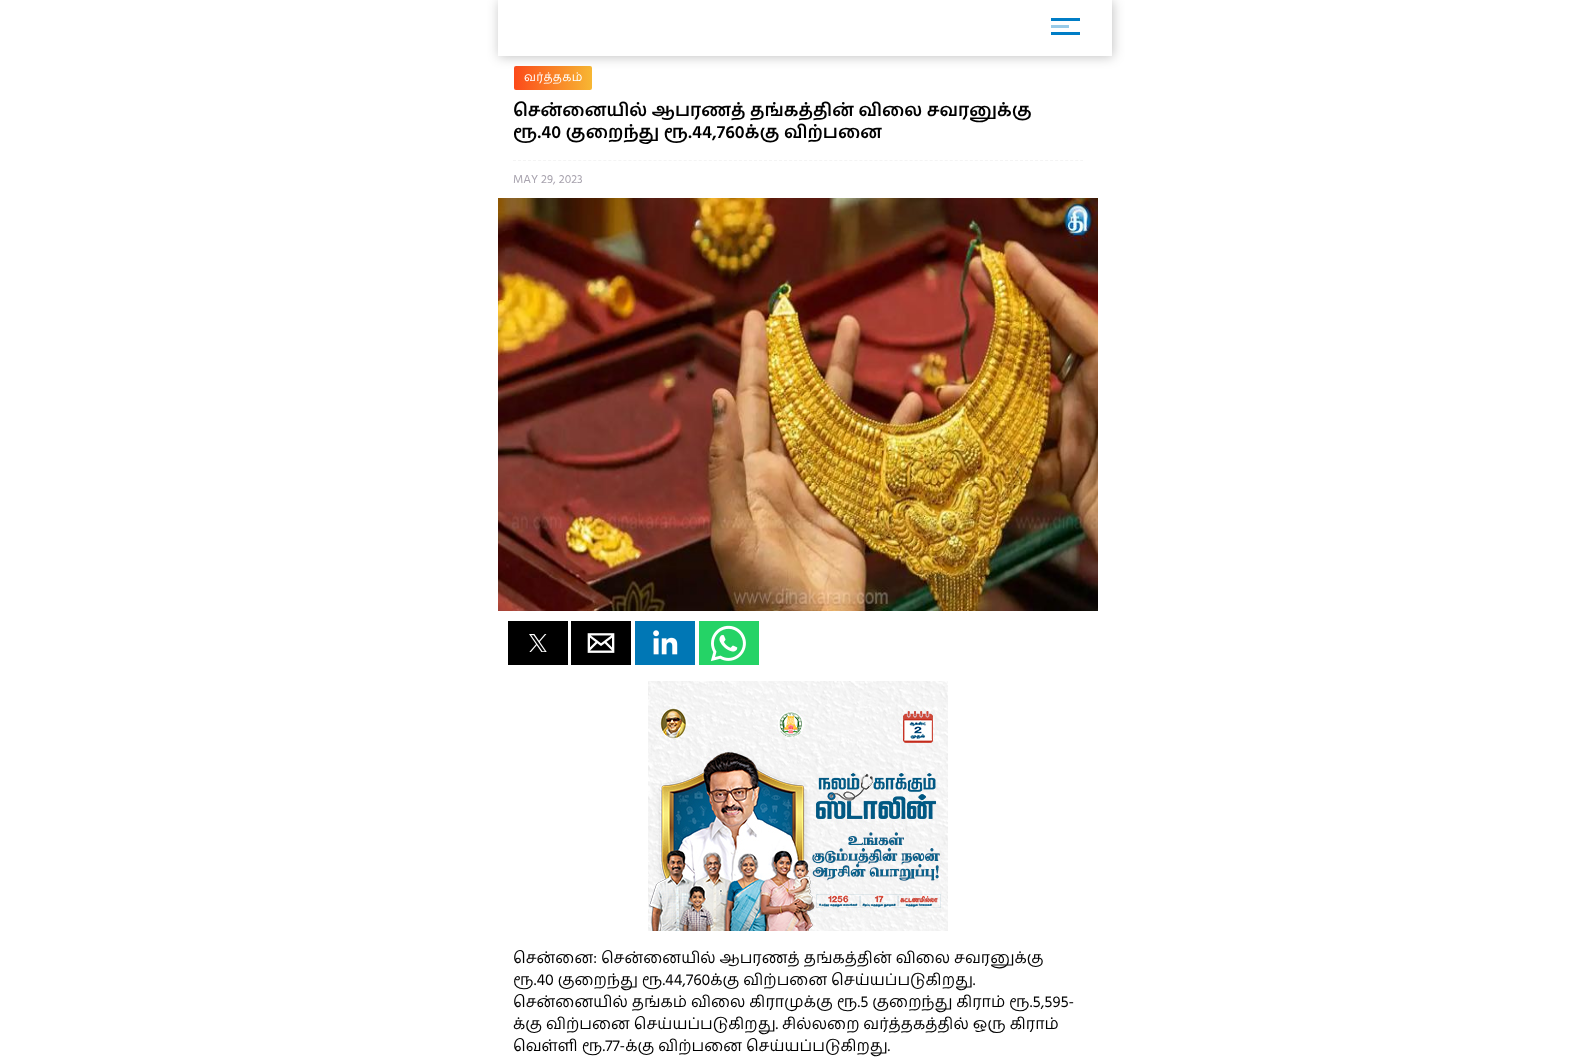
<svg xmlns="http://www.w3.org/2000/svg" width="1595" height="1063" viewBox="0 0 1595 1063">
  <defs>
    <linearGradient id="g1" gradientUnits="userSpaceOnUse" x1="592" y1="78" x2="514" y2="78"><stop offset="0" stop-color="#f7b733"/><stop offset="1" stop-color="#fc4a1a"/></linearGradient>
    <clipPath id="clip1"><path d="M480 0H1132V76H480ZM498 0H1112V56H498Z" clip-rule="evenodd"/></clipPath>
    <filter id="blur1" x="-50%" y="-200%" width="200%" height="500%"><feGaussianBlur stdDeviation="6"/></filter>
  </defs>
  <rect width="100%" height="100%" fill="#ffffff"/>
  <rect x="514" y="66" width="78" height="24" rx="2" fill="url(#g1)"/>
  <g clip-path="url(#clip1)">
    <rect x="499" y="1" width="614" height="56" fill="#000000" fill-opacity="0.24" filter="url(#blur1)"/>
  </g>
  <rect x="1051" y="18" width="29" height="3" fill="#007dc6"/>
  <rect x="1051" y="25" width="18" height="3" fill="#99cbe8"/>
  <rect x="1051" y="32" width="29" height="3" fill="#007dc6"/>
  <text x="524" y="81" font-family="Hind Madurai" font-size="12" letter-spacing="0.25" fill="#ffffff">வர்த்தகம்</text>
  <text x="513" y="116" font-family="Hind Madurai" font-size="18" font-weight="600" fill="#000000">சென்னையில் ஆபரணத் தங்கத்தின் விலை சவரனுக்கு</text>
  <text x="513" y="138" font-family="Hind Madurai" font-size="18" font-weight="600" fill="#000000">ரூ.40 குறைந்து ரூ.44,760க்கு விற்பனை</text>
  <path d="M513 160.5H1083" fill="none" stroke="#f4f4f4" stroke-dasharray="3 2.02"/>
  <text x="513" y="183" font-family="Hind Madurai" font-size="12" fill="#a8a3ae">MAY 29, 2023</text>
  <image x="498" y="198" width="600" height="413" href="img1.png"/>
  <rect x="508" y="621" width="60" height="44" fill="#000000"/>
  <image x="529" y="634" width="18" height="18" href="img2.png"/>
  <rect x="571" y="621" width="60" height="44" fill="#000000"/>
  <image x="587" y="633" width="28" height="20" href="img3.png"/>
  <rect x="635" y="621" width="60" height="44" fill="#0077b5"/>
  <image x="653" y="630" width="25" height="25" href="img4.png"/>
  <rect x="699" y="621" width="60" height="44" fill="#25d366"/>
  <image x="710" y="625" width="36" height="37" href="img5.png"/>
  <image x="648" y="681" width="300" height="250" href="img6.png"/>
  <text x="513" y="963" font-family="Hind Madurai" font-size="16" fill="#000000">சென்னை: சென்னையில் ஆபரணத் தங்கத்தின் விலை சவரனுக்கு</text>
  <text x="513" y="985" font-family="Hind Madurai" font-size="16" fill="#000000">ரூ.40 குறைந்து ரூ.44,760க்கு விற்பனை செய்யப்படுகிறது.</text>
  <text x="513" y="1007" font-family="Hind Madurai" font-size="16" fill="#000000">சென்னையில் தங்கம் விலை கிராமுக்கு ரூ.5 குறைந்து கிராம் ரூ.5,595-</text>
  <text x="513" y="1029" font-family="Hind Madurai" font-size="16" fill="#000000">க்கு விற்பனை செய்யப்படுகிறது. சில்லறை வர்த்தகத்தில் ஒரு கிராம்</text>
  <text x="513" y="1051" font-family="Hind Madurai" font-size="16" fill="#000000">வெள்ளி ரூ.77-க்கு விற்பனை செய்யப்படுகிறது.</text>
</svg>
